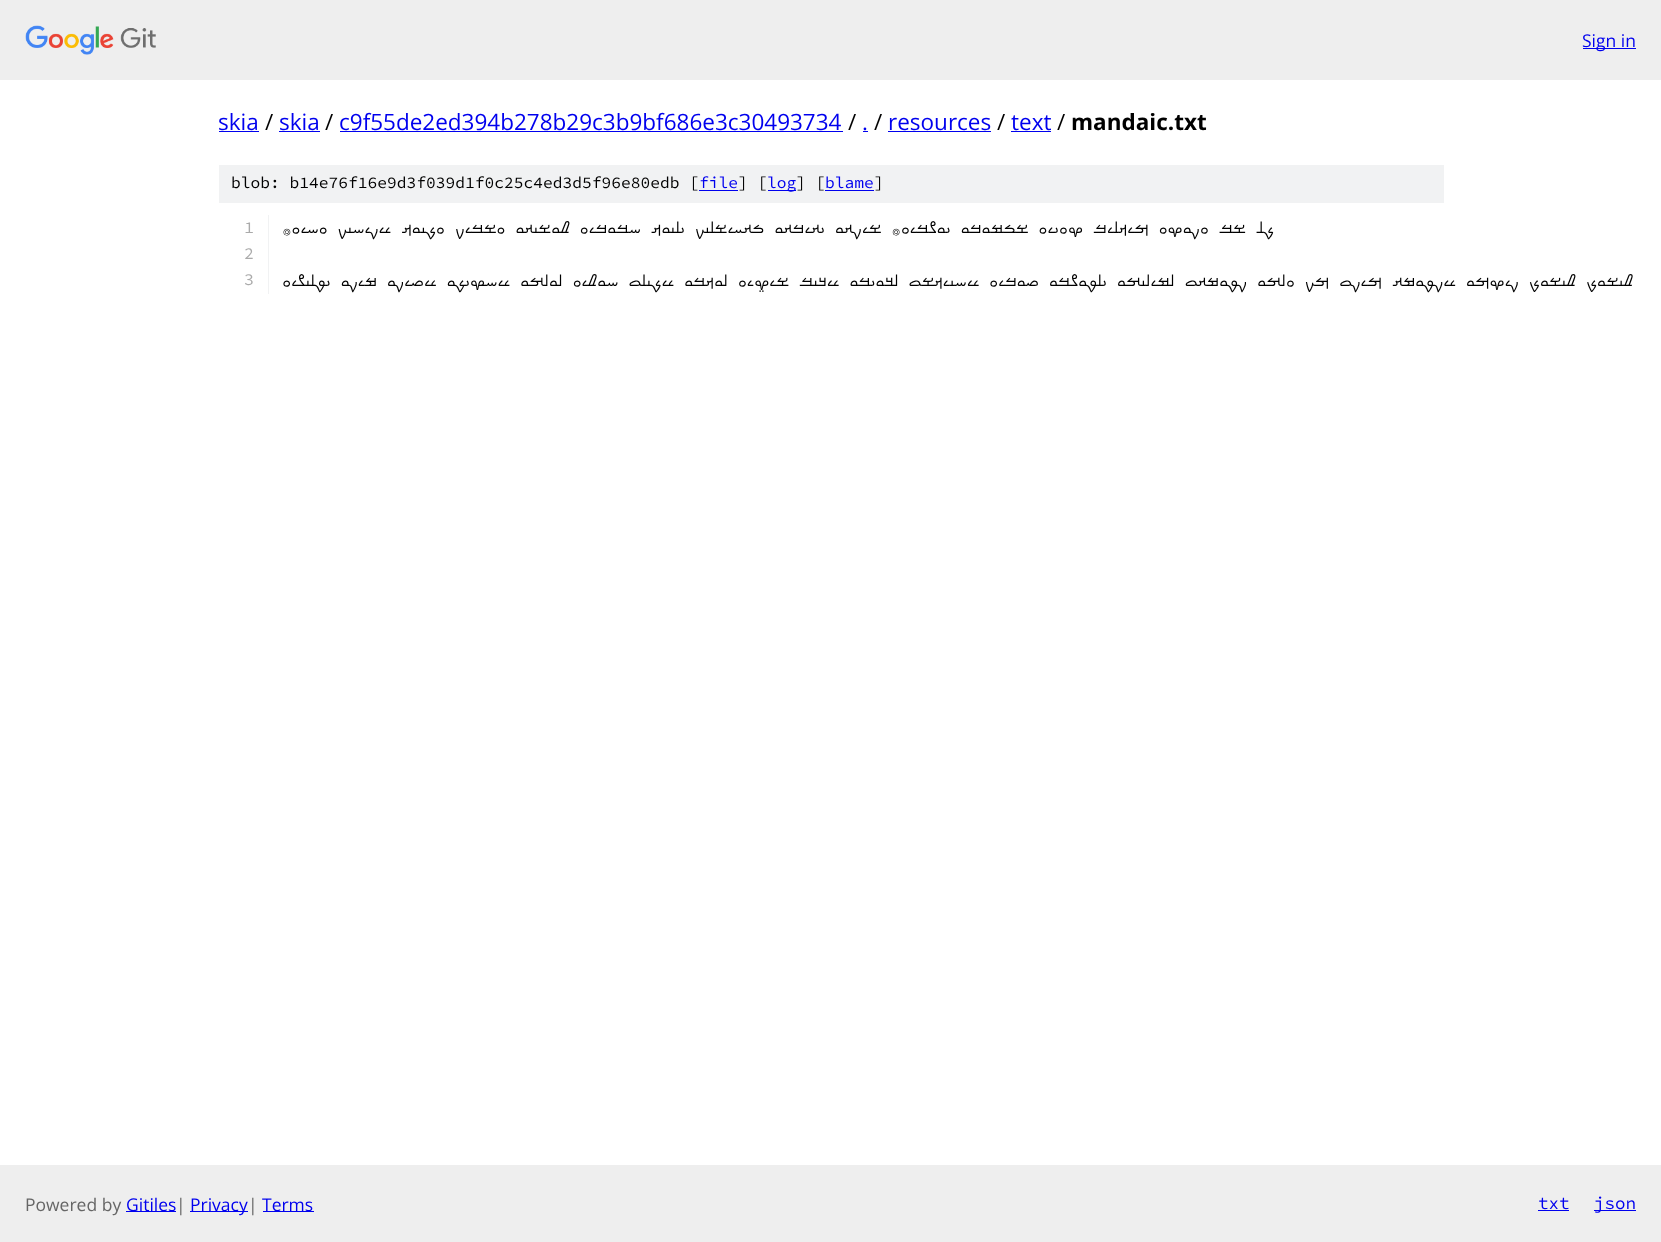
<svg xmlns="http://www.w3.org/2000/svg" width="1661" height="1242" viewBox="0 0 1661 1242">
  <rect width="100%" height="100%" fill="#ffffff"/>
  <rect x="0" y="0" width="1661" height="80" fill="#eeeeee"/>
  <rect x="1583" y="48" width="53" height="1" fill="#0000ee"/>
  <text x="1582" y="47" font-family="Open Sans" font-size="17.5" fill="#0000ee">Sign in</text>
  <image x="25" y="25" width="131" height="30" href="img1.png"/>
  <text x="1071" y="130" font-family="Open Sans" font-size="22.5" font-weight="bold" fill="#000000">mandaic.txt</text>
  <text x="1057" y="130" font-family="Open Sans" font-size="22.5" fill="#000000">/</text>
  <text x="1011" y="130" font-family="Open Sans" font-size="22.5" fill="#0000ee">text</text>
  <rect x="1011" y="131" width="40" height="1" fill="#0000ee"/>
  <text x="997" y="130" font-family="Open Sans" font-size="22.5" fill="#000000">/</text>
  <text x="888" y="130" font-family="Open Sans" font-size="22.5" fill="#0000ee">resources</text>
  <rect x="888" y="131" width="103" height="1" fill="#0000ee"/>
  <text x="874" y="130" font-family="Open Sans" font-size="22.5" fill="#000000">/</text>
  <text x="862" y="130" font-family="Open Sans" font-size="22.5" fill="#0000ee">.</text>
  <rect x="863" y="131" width="5" height="1" fill="#0000ee"/>
  <text x="848" y="130" font-family="Open Sans" font-size="22.5" fill="#000000">/</text>
  <text x="339" y="130" font-family="Open Sans" font-size="22.5" fill="#0000ee">c9f55de2ed394b278b29c3b9bf686e3c30493734</text>
  <rect x="340" y="131" width="503" height="1" fill="#0000ee"/>
  <text x="325" y="130" font-family="Open Sans" font-size="22.5" fill="#000000">/</text>
  <text x="279" y="130" font-family="Open Sans" font-size="22.5" fill="#0000ee">skia</text>
  <rect x="279" y="131" width="41" height="1" fill="#0000ee"/>
  <text x="265" y="130" font-family="Open Sans" font-size="22.5" fill="#000000">/</text>
  <text x="218" y="130" font-family="Open Sans" font-size="22.5" fill="#0000ee">skia</text>
  <rect x="219" y="131" width="40" height="1" fill="#0000ee"/>
  <rect x="219" y="165" width="1225" height="38" fill="#f1f2f3"/>
  <text x="874" y="188" font-family="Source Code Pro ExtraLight" font-size="16.25" font-weight="200" fill="#000000">]</text>
  <text x="825" y="188" font-family="Source Code Pro ExtraLight" font-size="16.25" font-weight="200" fill="#0000ee">blame</text>
  <rect x="825" y="190" width="49" height="1" fill="#0000ee"/>
  <text x="796" y="188" font-family="Source Code Pro ExtraLight" font-size="16.25" font-weight="200" fill="#000000">] [</text>
  <rect x="768" y="190" width="28" height="1" fill="#0000ee"/>
  <text x="767" y="188" font-family="Source Code Pro ExtraLight" font-size="16.25" font-weight="200" fill="#0000ee">log</text>
  <text x="738" y="188" font-family="Source Code Pro ExtraLight" font-size="16.25" font-weight="200" fill="#000000">] [</text>
  <text x="699" y="188" font-family="Source Code Pro ExtraLight" font-size="16.25" font-weight="200" fill="#0000ee">file</text>
  <rect x="699" y="190" width="39" height="1" fill="#0000ee"/>
  <text x="231" y="188" font-family="Source Code Pro ExtraLight" font-size="16.25" font-weight="200" fill="#000000">blob: b14e76f16e9d3f039d1f0c25c4ed3d5f96e80edb [</text>
  <text x="1274" y="233" word-spacing="5.6" font-family="Noto Sans Mandaic" font-size="16.67" direction="rtl" fill="#000000">ࡊࡋ ࡁࡓ ࡀࡍࡀࡔࡀ ࡌࡉࡕࡋࡉࡓ ࡔࡀࡅࡉࡀ ࡁࡏࡒࡀࡓࡀ ࡅࡀࡂࡓࡉࡀ࡞ ࡁࡉࡍࡕࡀ ࡅࡕࡉࡓࡕࡀ ࡏࡕࡄࡉࡁࡋࡅࡍ ࡅࡋࡅࡀࡕ ࡄࡓࡀࡓࡉࡀ ࡈࡀࡁࡅࡕࡀ ࡀࡁࡓࡉࡍ ࡀࡊࡅࡀࡕ ࡖࡍࡉࡄࡅࡍ ࡀࡄࡉࡀ࡞</text>
  <rect x="268" y="215" width="1" height="79" fill="#f1f2f3"/>
  <text x="244" y="233" font-family="Source Code Pro ExtraLight" font-size="16.67" font-weight="200" fill="#aaaaaa">1</text>
  <text x="244" y="259" font-family="Source Code Pro ExtraLight" font-size="16.67" font-weight="200" fill="#aaaaaa">2</text>
  <text x="1633" y="286" word-spacing="5.6" font-family="Noto Sans Mandaic" font-size="16.67" direction="rtl" fill="#000000">ࡈࡅࡁࡀࡊ ࡈࡅࡁࡀࡊ ࡍࡉࡔࡌࡀ ࡖࡍࡐࡀࡒࡕ ࡌࡉࡍࡇ ࡌࡍ ࡀࡋࡌࡀ ࡍࡐࡀࡒࡕࡇ ࡋࡒࡉࡋࡅࡌࡀ ࡅࡋࡐࡀࡂࡓࡀ ࡎࡀࡓࡉࡀ ࡖࡄࡅࡉࡕࡁࡇ ࡋࡃࡀࡅࡓࡀ ࡖࡃࡅࡓ ࡁࡉࡔ࡙ࡉࡀ ࡋࡀࡕࡓࡀ ࡖࡊࡅࡋࡇ ࡄࡀࡈࡉࡀ ࡋࡀࡋࡌࡀ ࡖࡄࡔࡅࡊࡀ ࡖࡎࡉࡍࡀ ࡒࡉࡍࡀ ࡅࡐࡋࡅࡂࡉࡀ</text>
  <text x="244" y="285" font-family="Source Code Pro ExtraLight" font-size="16.67" font-weight="200" fill="#aaaaaa">3</text>
  <rect x="0" y="1165" width="1661" height="77" fill="#eeeeee"/>
  <rect x="1594" y="1210" width="42" height="1" fill="#0000ee"/>
  <text x="1594" y="1209" font-family="Source Code Pro ExtraLight" font-size="17.5" font-weight="200" fill="#0000ee">json</text>
  <text x="1538" y="1209" font-family="Source Code Pro ExtraLight" font-size="17.5" font-weight="200" fill="#0000ee">txt</text>
  <rect x="1538" y="1210" width="31" height="1" fill="#0000ee"/>
  <rect x="263" y="1211" width="51" height="1" fill="#0000ee"/>
  <text x="262" y="1211" font-family="Open Sans" font-size="17.5" fill="#0000ee">Terms</text>
  <text x="248" y="1211" font-family="Open Sans" font-size="17.5" fill="#666666">|</text>
  <rect x="190" y="1211" width="58" height="1" fill="#0000ee"/>
  <text x="190" y="1211" font-family="Open Sans" font-size="17.5" fill="#0000ee">Privacy</text>
  <text x="176" y="1211" font-family="Open Sans" font-size="17.5" fill="#666666">|</text>
  <rect x="126" y="1211" width="50" height="1" fill="#0000ee"/>
  <text x="126" y="1211" font-family="Open Sans" font-size="17.5" fill="#0000ee">Gitiles</text>
  <text x="25" y="1211" font-family="Open Sans" font-size="17.5" fill="#666666">Powered by</text>
</svg>
